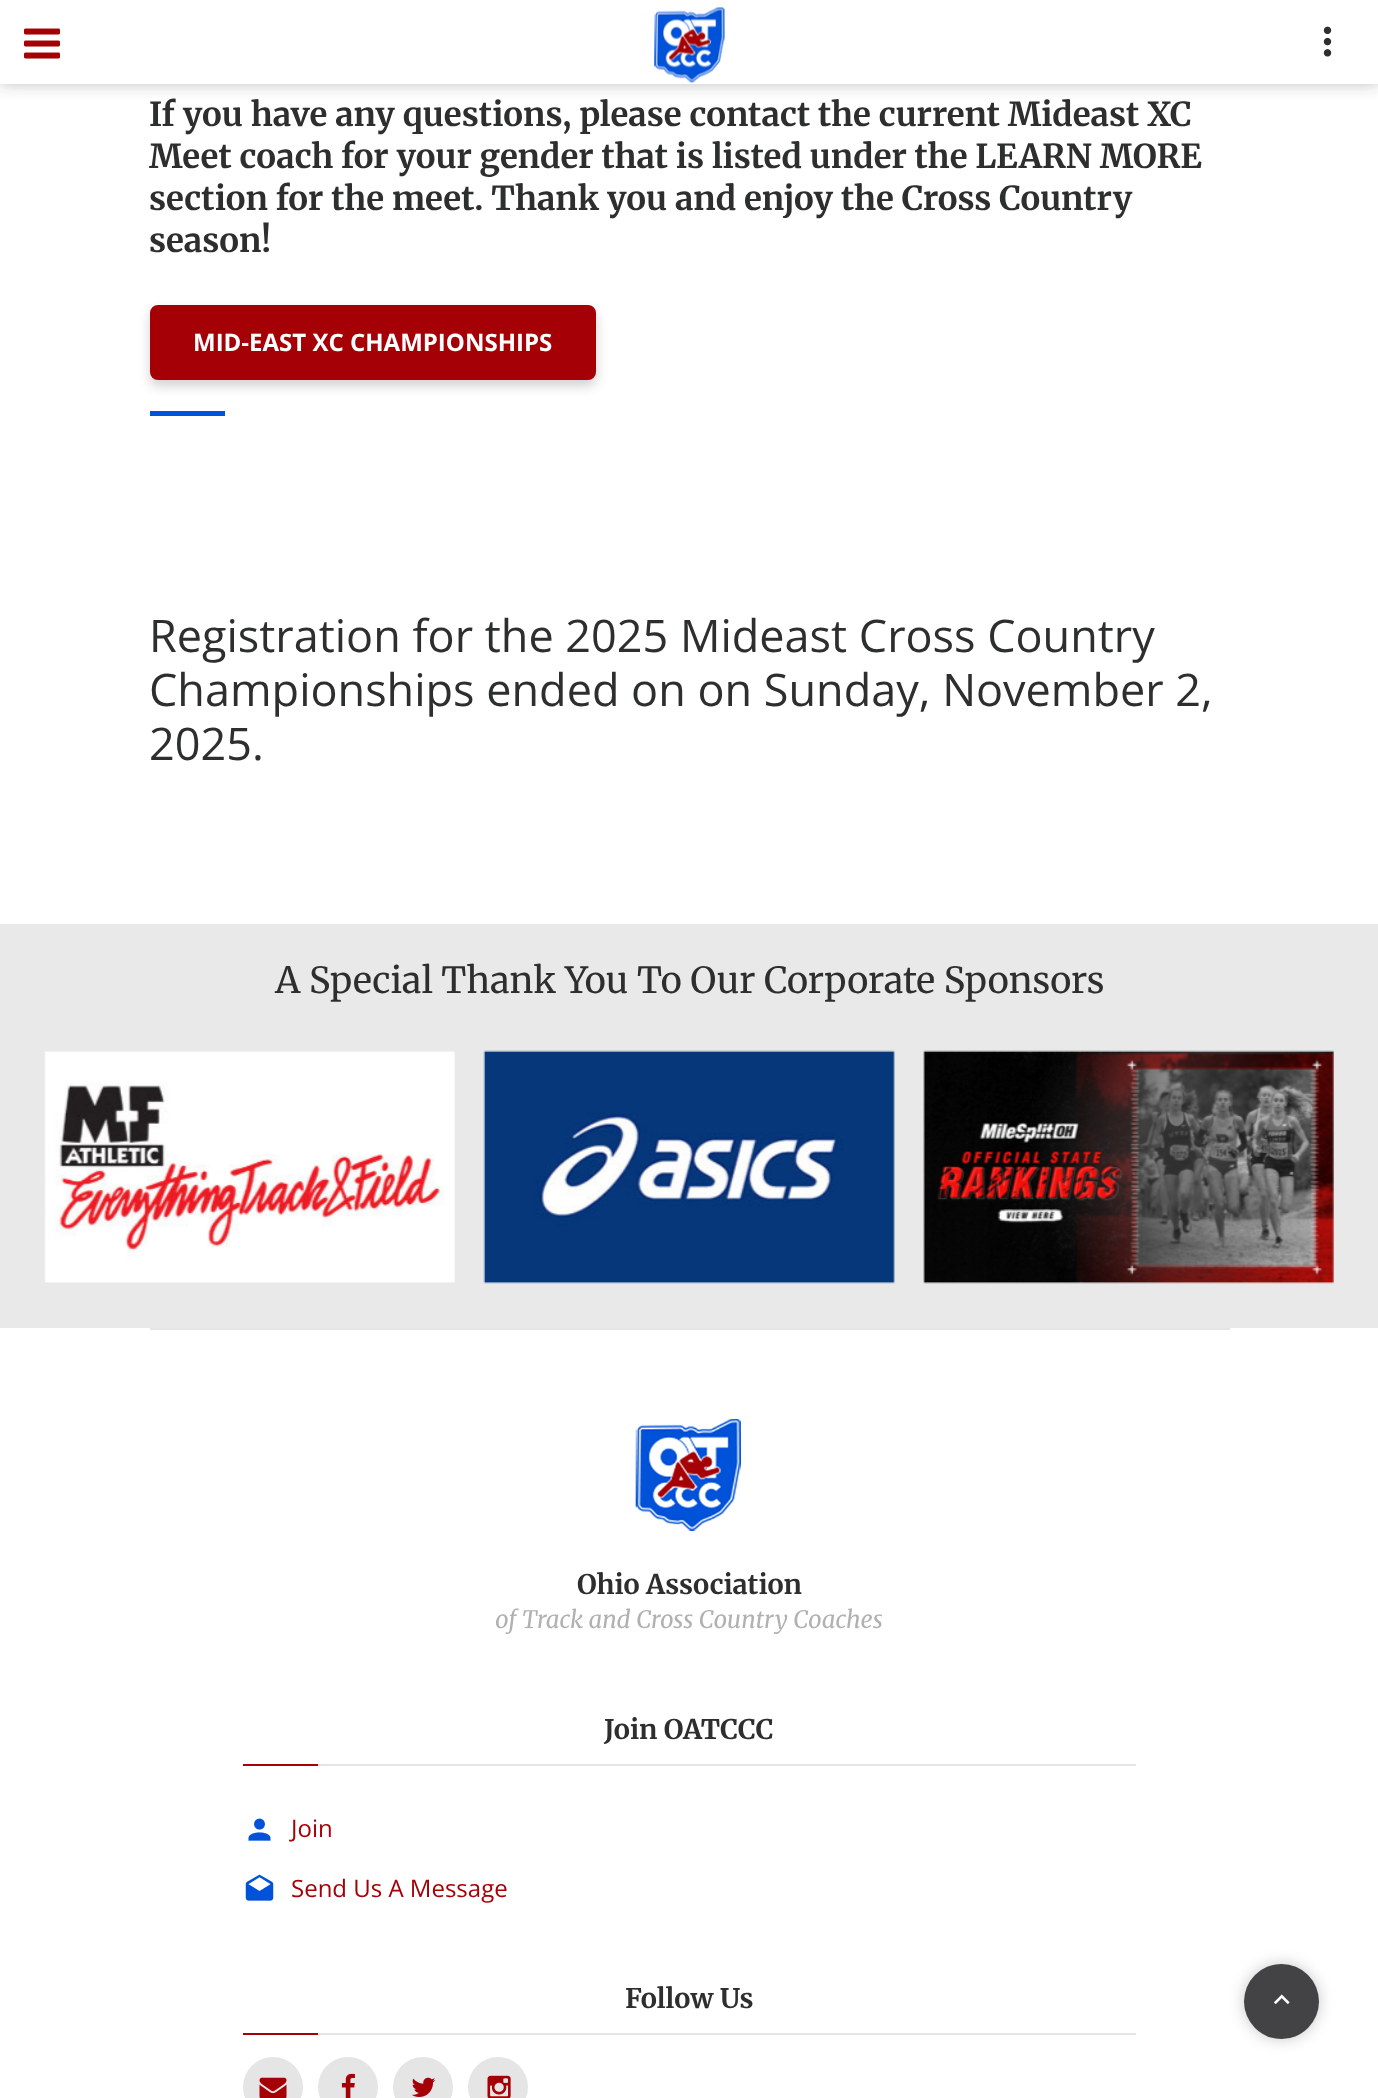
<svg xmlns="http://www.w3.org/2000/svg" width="1378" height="2098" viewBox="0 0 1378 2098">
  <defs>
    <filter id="blur1" x="-50%" y="-200%" width="200%" height="500%"><feGaussianBlur stdDeviation="7.5"/></filter>
    <filter id="blur2" x="-50%" y="-200%" width="200%" height="500%"><feGaussianBlur stdDeviation="6"/></filter>
  </defs>
  <rect width="100%" height="100%" fill="#ffffff"/>
  <rect x="0" y="0" width="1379" height="84" fill="#434345" fill-opacity="0.35" filter="url(#blur1)"/>
  <rect x="0" y="0" width="1378" height="84" fill="#ffffff"/>
  <image x="24" y="28" width="36" height="31" href="img1.png"/>
  <image x="654" y="7" width="71" height="76" href="img2.png"/>
  <image x="1323" y="26" width="9" height="31" href="img3.png"/>
  <text x="149" y="126" font-family="Merriweather" font-size="33" font-weight="bold" fill="#2d2e2e">If you have any questions, please contact the current Mideast XC</text>
  <text x="149" y="168" font-family="Merriweather" font-size="33" font-weight="bold" fill="#2d2e2e">Meet coach for your gender that is listed under the LEARN MORE</text>
  <text x="149" y="210" font-family="Merriweather" font-size="33" font-weight="bold" fill="#2d2e2e">section for the meet. Thank you and enjoy the Cross Country</text>
  <text x="149" y="252" font-family="Merriweather" font-size="33" font-weight="bold" fill="#2d2e2e">season!</text>
  <rect x="150" y="311" width="446" height="75" rx="8" fill="#000000" fill-opacity="0.18" filter="url(#blur2)"/>
  <rect x="151.5" y="306.5" width="443" height="72" rx="6.5" fill="#a60007" stroke="#a60007" stroke-width="3"/>
  <text x="193" y="351" font-family="Open Sans" font-size="24" font-weight="bold" fill="#ffffff">MID-EAST XC CHAMPIONSHIPS</text>
  <rect x="150" y="411" width="75" height="5" fill="#0053d8"/>
  <text x="149" y="652" font-family="Open Sans" font-size="45" fill="#2d2e2e">Registration for the 2025 Mideast Cross Country</text>
  <text x="149" y="706" font-family="Open Sans" font-size="45" fill="#2d2e2e">Championships ended on on Sunday, November 2,</text>
  <text x="149" y="760" font-family="Open Sans" font-size="45" fill="#2d2e2e">2025.</text>
  <rect x="0" y="924" width="1378" height="404" fill="#e9e9e9"/>
  <text x="275" y="993" font-family="Merriweather" font-size="36" fill="#2d2e2e">A Special Thank You To Our Corporate Sponsors</text>
  <image x="44" y="1051" width="411" height="232" href="img4.png"/>
  <image x="483" y="1050" width="412" height="234" href="img5.png"/>
  <image x="923" y="1050" width="411" height="234" href="img6.png"/>
  <rect x="150" y="1328" width="1080" height="2" fill="#e5e5e5"/>
  <image x="635" y="1419" width="106" height="112" href="img7.png"/>
  <text x="577" y="1594" font-family="Merriweather" font-size="27" font-weight="bold" fill="#2d2e2e">Ohio Association</text>
  <text x="495" y="1628" font-family="Merriweather" font-size="24" font-style="italic" fill="#b1b1b1">of Track and Cross Country Coaches</text>
  <text x="604" y="1739" font-family="Merriweather" font-size="27" font-weight="bold" fill="#2d2e2e">Join OATCCC</text>
  <rect x="318" y="1764" width="818" height="2" fill="#e5e5e5"/>
  <rect x="243" y="1764" width="75" height="2" fill="#a60007"/>
  <image x="248" y="1818" width="23" height="23" href="img8.png"/>
  <text x="291" y="1837" font-family="Open Sans" font-size="24" fill="#a60007">Join</text>
  <image x="245" y="1874" width="29" height="27" href="img9.png"/>
  <text x="291" y="1897" font-family="Open Sans" font-size="24" fill="#a60007">Send Us A Message</text>
  <text x="625" y="2008" font-family="Merriweather" font-size="27" font-weight="bold" fill="#2d2e2e">Follow Us</text>
  <rect x="318" y="2033" width="818" height="2" fill="#e5e5e5"/>
  <rect x="243" y="2033" width="75" height="2" fill="#a60007"/>
  <circle cx="273" cy="2087" r="30" fill="#e5e5e5"/>
  <image x="259" y="2077" width="28" height="21" href="img10.png"/>
  <circle cx="348" cy="2087" r="30" fill="#e5e5e5"/>
  <image x="341" y="2073" width="14" height="25" href="img11.png"/>
  <circle cx="423" cy="2087" r="30" fill="#e5e5e5"/>
  <image x="411" y="2077" width="25" height="20" href="img12.png"/>
  <circle cx="498" cy="2087" r="30" fill="#e5e5e5"/>
  <image x="487" y="2075" width="24" height="23" href="img13.png"/>
  <rect x="1244" y="1964" width="75" height="75" rx="37.5" fill="#000000" fill-opacity="0.22" filter="url(#blur1)"/>
  <circle cx="1281.5" cy="2001.5" r="37.5" fill="#434345"/>
  <image x="1274" y="1994" width="16" height="11" href="img14.png"/>
</svg>
